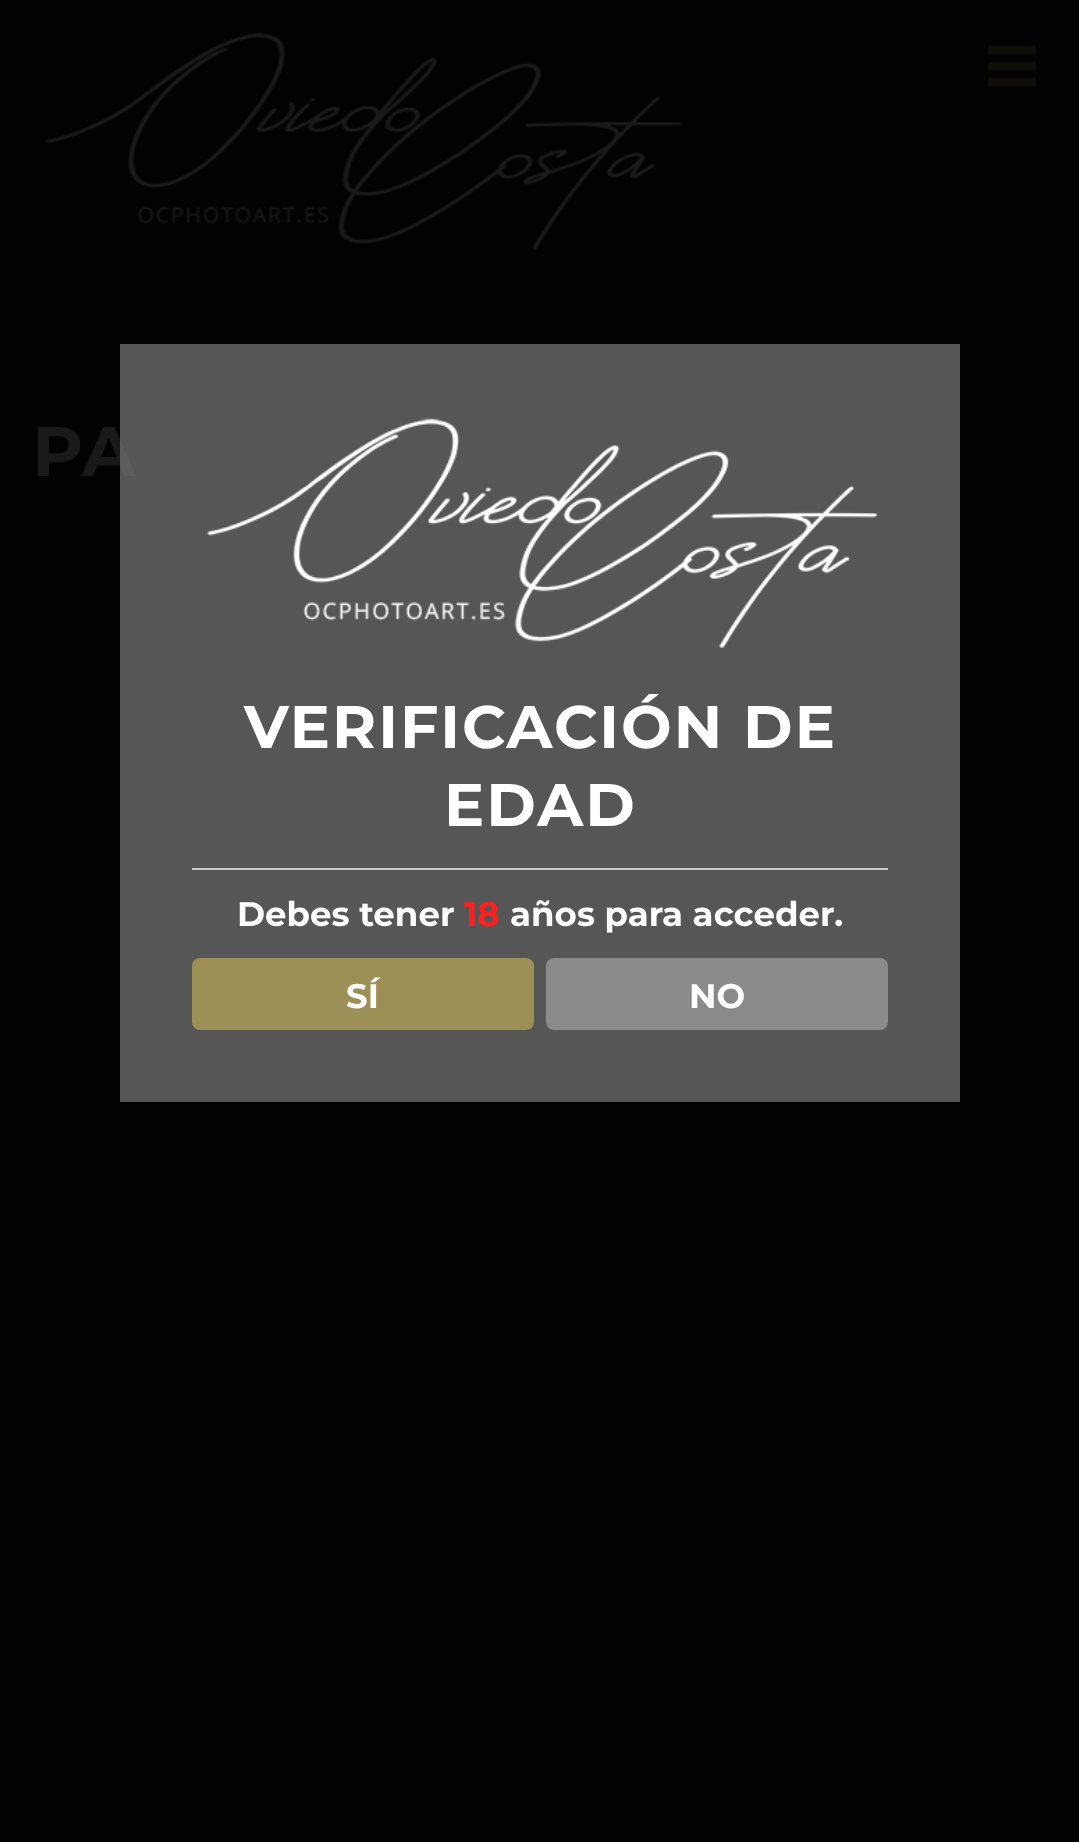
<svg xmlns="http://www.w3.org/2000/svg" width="1079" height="1842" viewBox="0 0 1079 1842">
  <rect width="100%" height="100%" fill="#020202"/>
  <image x="46" y="32" width="636" height="219" href="img1.png"/>
  <image x="988" y="46" width="48" height="40" href="img2.png"/>
  <text x="32" y="476" font-family="Montserrat" font-size="70" font-weight="bold" letter-spacing="2" fill="#191919">PA</text>
  <rect x="120" y="344" width="840" height="758" fill="#747474" fill-opacity="0.74"/>
  <image x="207" y="418" width="671" height="230" href="img3.png"/>
  <rect x="192" y="868" width="696" height="2" fill="#cccccc"/>
  <text x="244" y="748" font-family="Montserrat" font-size="60" font-weight="bold" letter-spacing="2" fill="#ffffff">VERIFICACIÓN DE</text>
  <text x="444" y="826" font-family="Montserrat" font-size="60" font-weight="bold" letter-spacing="2" fill="#ffffff">EDAD</text>
  <text x="237" y="926" font-family="Montserrat" font-size="34" font-weight="bold" fill="#ffffff">Debes tener</text>
  <text x="464" y="926" font-family="Montserrat" font-size="34" font-weight="bold" fill="#ff1f1f">18</text>
  <text x="510" y="926" font-family="Montserrat" font-size="34" font-weight="bold" fill="#ffffff">años para acceder.</text>
  <rect x="192" y="958" width="342" height="72" rx="8" fill="#9c9057"/>
  <text x="346" y="1008" font-family="Montserrat" font-size="34" font-weight="bold" fill="#ffffff">SÍ</text>
  <rect x="546" y="958" width="342" height="72" rx="8" fill="#8a8a8a"/>
  <text x="689" y="1008" font-family="Montserrat" font-size="34" font-weight="bold" fill="#ffffff">NO</text>
</svg>
